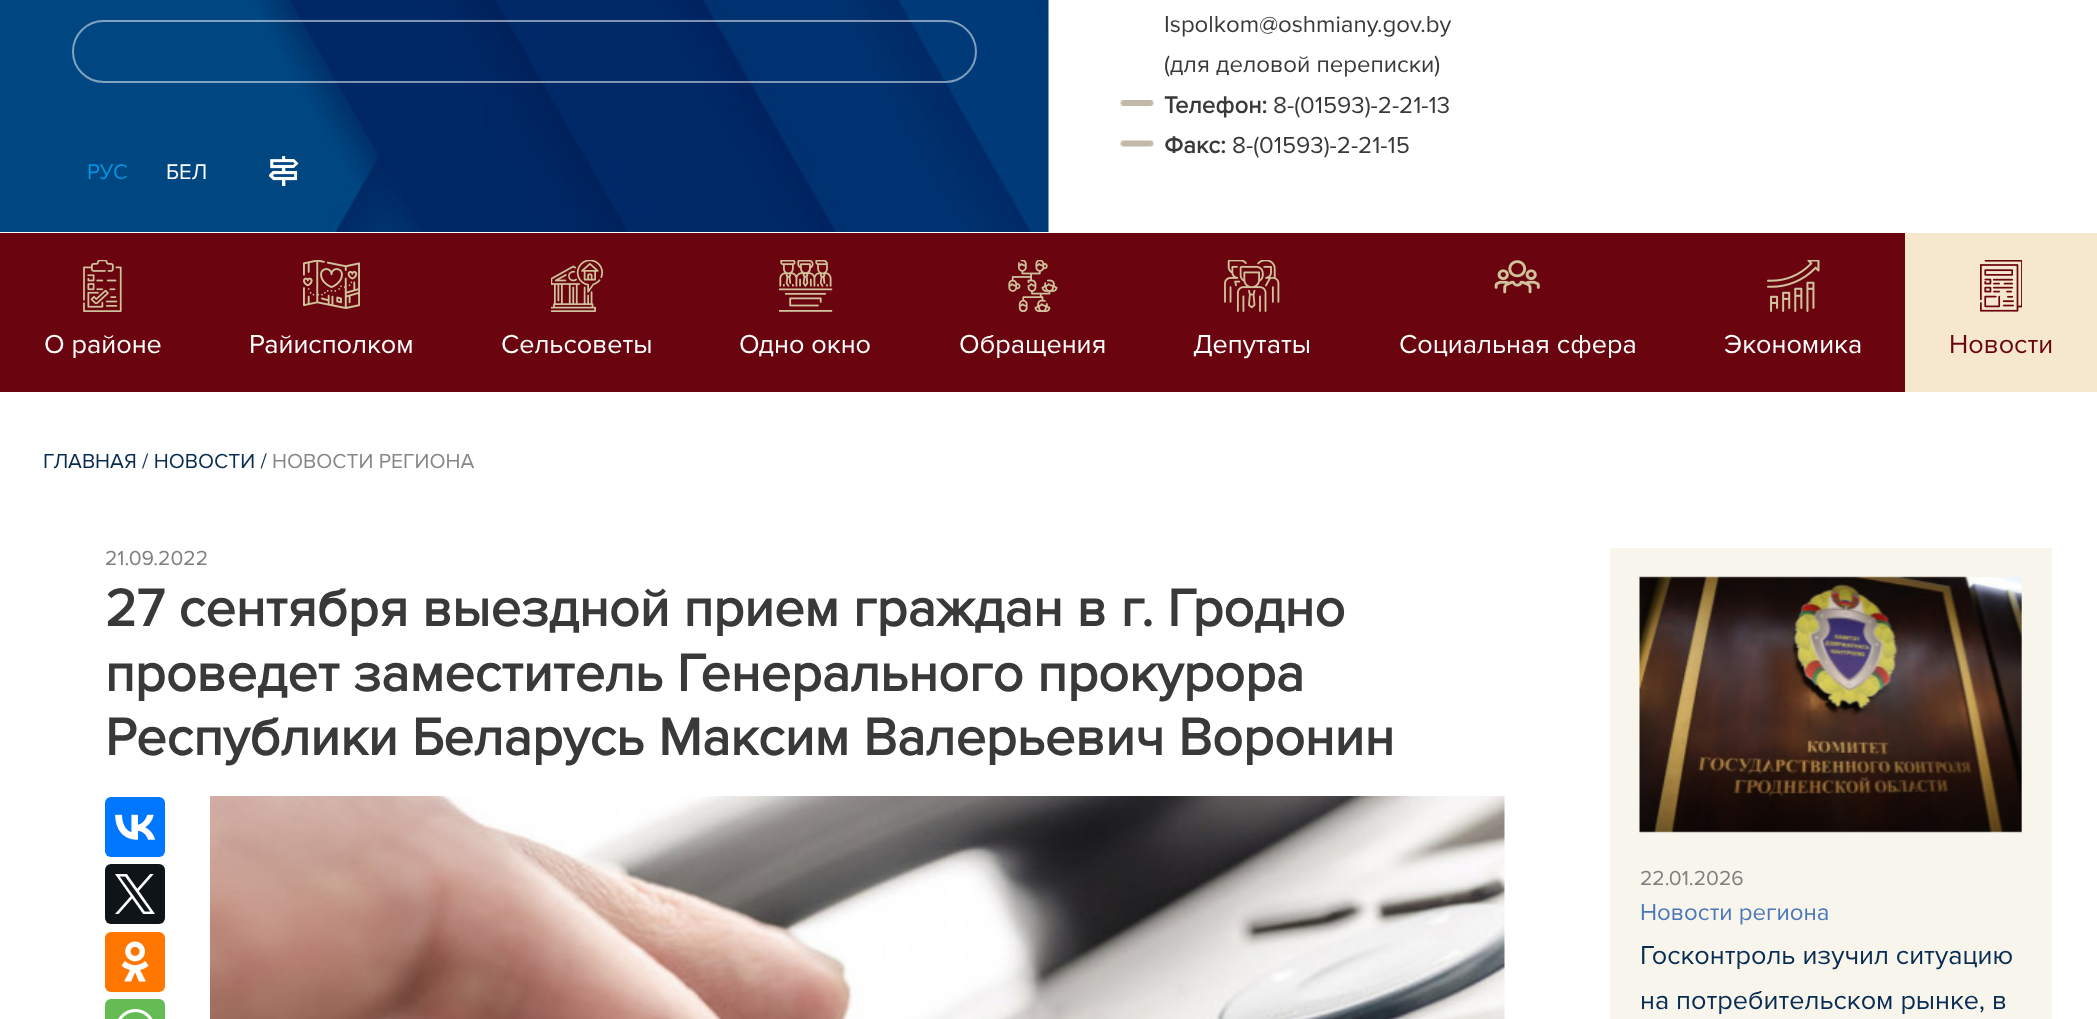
<svg xmlns="http://www.w3.org/2000/svg" width="2097" height="1019" viewBox="0 0 2097 1019">
  <rect width="100%" height="100%" fill="#ffffff"/>
  <text x="1164" y="32" font-family="Proxima Nova" font-size="24" fill="#393939">Ispolkom@oshmiany.gov.by</text>
  <text x="1164" y="72" font-family="Proxima Nova" font-size="24" fill="#393939">(для деловой переписки)</text>
  <image x="1120" y="100" width="34" height="6" href="img1.png"/>
  <text x="1164" y="113" font-family="Proxima Nova" font-size="24" font-weight="bold" fill="#393939">Т</text>
  <text x="1175" y="113" font-family="Proxima Nova" font-size="24" font-weight="bold" fill="#393939">елефон:</text>
  <text x="1273" y="113" font-family="Proxima Nova" font-size="24" fill="#393939">8-(01593)-2-21-13</text>
  <image x="1120" y="140" width="34" height="7" href="img2.png"/>
  <text x="1164" y="153" font-family="Proxima Nova" font-size="24" font-weight="bold" fill="#393939">Факс:</text>
  <text x="1232" y="153" font-family="Proxima Nova" font-size="24" fill="#393939">8-(01593)-2-21-15</text>
  <image x="0" y="0" width="1049" height="232" href="img3.png"/>
  <rect x="73" y="21" width="903" height="61" rx="30.5" fill="none" stroke="#ffffff" stroke-opacity="0.5" stroke-width="2"/>
  <text x="87" y="179" font-family="Proxima Nova" font-size="22" fill="#0493dd">РУС</text>
  <text x="166" y="179" font-family="Proxima Nova" font-size="22" fill="#ffffff">БЕЛ</text>
  <image x="269" y="156" width="30" height="30" href="img4.png"/>
  <rect x="0" y="233" width="1905" height="159" fill="#6a050f"/>
  <image x="83" y="260" width="39" height="52" href="img5.png"/>
  <text x="44" y="353" font-family="Proxima Nova" font-size="27" fill="#ffffff">О районе</text>
  <image x="303" y="260" width="57" height="49" href="img6.png"/>
  <text x="249" y="353" font-family="Proxima Nova" font-size="27" fill="#ffffff">Райисполком</text>
  <image x="551" y="260" width="52" height="52" href="img7.png"/>
  <text x="501" y="353" font-family="Proxima Nova" font-size="27" fill="#ffffff">Сельсоветы</text>
  <image x="779" y="260" width="54" height="52" href="img8.png"/>
  <text x="739" y="353" font-family="Proxima Nova" font-size="27" fill="#ffffff">Одно окно</text>
  <image x="1008" y="260" width="50" height="52" href="img9.png"/>
  <text x="959" y="353" font-family="Proxima Nova" font-size="27" fill="#ffffff">Обращения</text>
  <image x="1224" y="260" width="56" height="52" href="img10.png"/>
  <text x="1193" y="353" font-family="Proxima Nova" font-size="27" fill="#ffffff">Депутаты</text>
  <image x="1494" y="260" width="46" height="34" href="img11.png"/>
  <text x="1399" y="353" font-family="Proxima Nova" font-size="27" fill="#ffffff">Социальная сфера</text>
  <image x="1767" y="260" width="53" height="52" href="img12.png"/>
  <text x="1724" y="353" font-family="Proxima Nova" font-size="27" fill="#ffffff">Экономика</text>
  <rect x="1905" y="233" width="192" height="159" fill="#f6e8ce"/>
  <image x="1980" y="260" width="42" height="52" href="img13.png"/>
  <text x="1949" y="353" font-family="Proxima Nova" font-size="27" fill="#6a050f">Новости</text>
  <text x="43" y="468" font-family="Proxima Nova" font-size="21" fill="#082c52">ГЛАВНАЯ / НОВОСТИ /</text>
  <text x="272" y="468" font-family="Proxima Nova" font-size="21" fill="#888888">НОВОСТИ РЕГИОНА</text>
  <text x="105" y="565" font-family="Proxima Nova" font-size="21" fill="#808080">21.09.2022</text>
  <text x="105" y="626" font-family="Proxima Nova" font-size="54" font-weight="bold" fill="#393939">27 сентября выездной прием граждан в г. Гродно</text>
  <text x="105" y="691" font-family="Proxima Nova" font-size="54" font-weight="bold" fill="#393939">проведет заместитель Генерального прокурора</text>
  <text x="105" y="755" font-family="Proxima Nova" font-size="54" font-weight="bold" fill="#393939">Республики Беларусь Максим Валерьевич Воронин</text>
  <rect x="105" y="797" width="60" height="60" rx="6" fill="#0077ff"/>
  <image x="115" y="814" width="41" height="26" href="img14.png"/>
  <rect x="105" y="864" width="60" height="60" rx="6" fill="#0f1419"/>
  <image x="115" y="874" width="40" height="40" href="img15.png"/>
  <rect x="105" y="932" width="60" height="60" rx="6" fill="#ff7700"/>
  <image x="121" y="941" width="28" height="41" href="img16.png"/>
  <rect x="105" y="999" width="60" height="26" rx="6" fill="#65bc54"/>
  <image x="118" y="1009" width="35" height="10" href="img17.png"/>
  <image x="210" y="796" width="1295" height="223" href="img18.png"/>
  <rect x="1610" y="548" width="442" height="471" fill="#f8f5ec"/>
  <image x="1639" y="576" width="383" height="257" href="img19.png"/>
  <text x="1640" y="885" font-family="Proxima Nova" font-size="21" fill="#808080">22.01.2026</text>
  <text x="1640" y="920" font-family="Proxima Nova" font-size="24" fill="#4c77bb">Новости региона</text>
  <text x="1640" y="964" font-family="Proxima Nova" font-size="27" fill="#082c52">Госконтроль изучил ситуацию</text>
  <text x="1640" y="1009" font-family="Proxima Nova" font-size="27" fill="#082c52">на потребительском рынке, в</text>
</svg>
